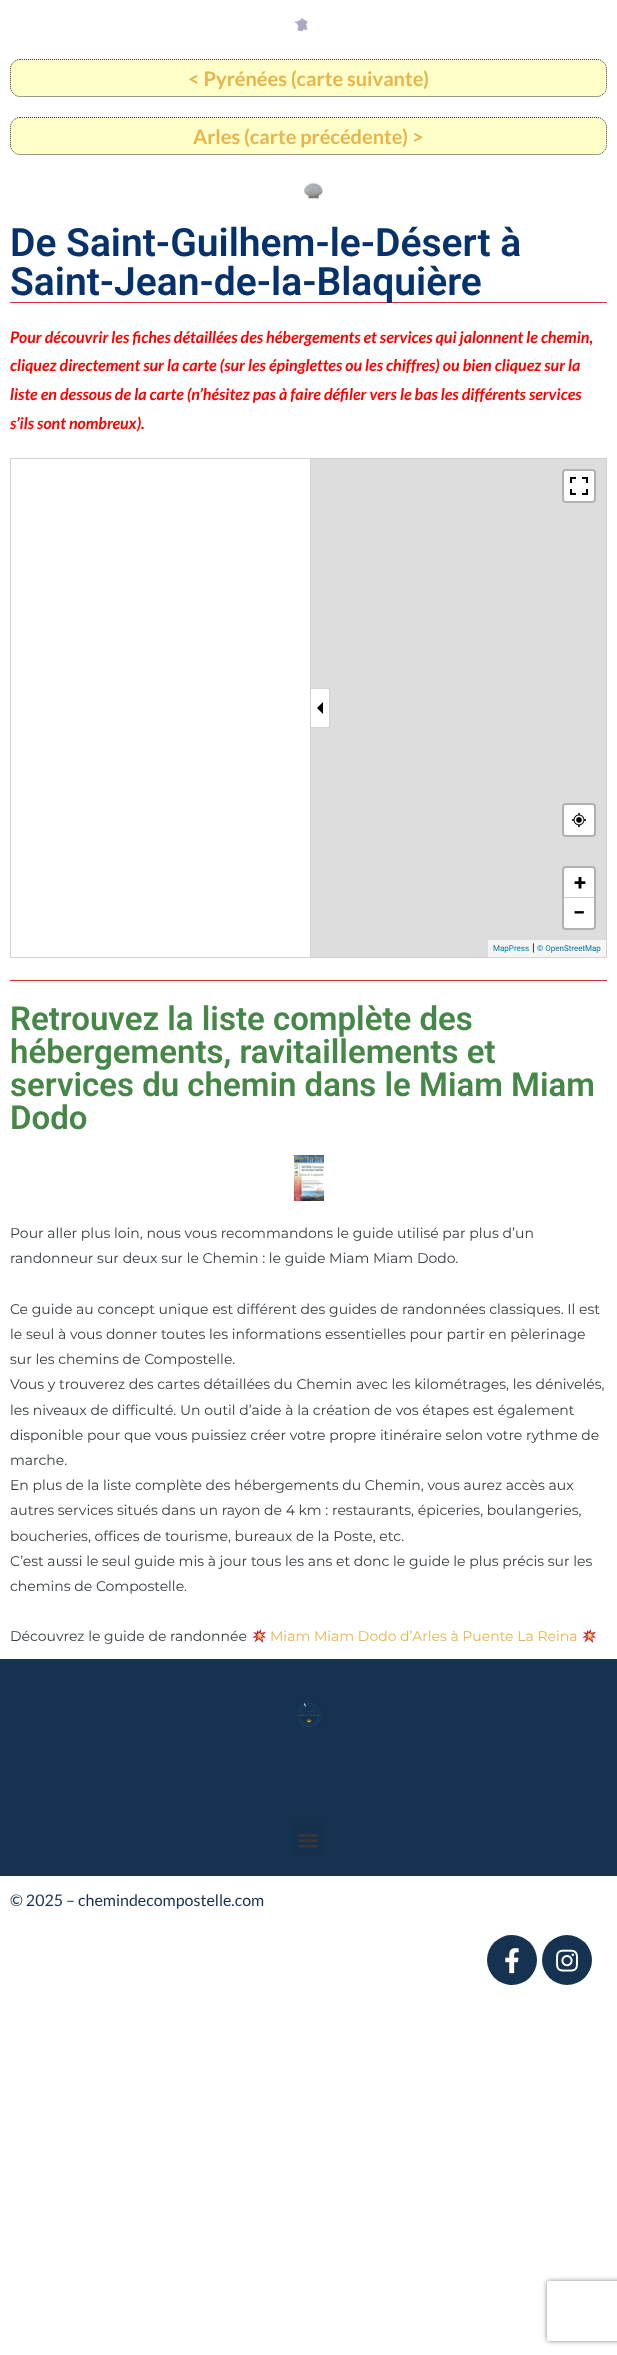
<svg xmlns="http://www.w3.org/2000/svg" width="617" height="2355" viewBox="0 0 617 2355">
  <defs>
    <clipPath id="clip1"><path d="M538 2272H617V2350H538ZM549 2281H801C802 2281 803 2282 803 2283V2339C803 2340 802 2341 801 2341H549C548 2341 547 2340 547 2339V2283C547 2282 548 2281 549 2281Z" clip-rule="evenodd"/></clipPath>
    <filter id="blur1" x="-50%" y="-200%" width="200%" height="500%"><feGaussianBlur stdDeviation="2.5"/></filter>
  </defs>
  <rect width="100%" height="100%" fill="#ffffff"/>
  <image x="294" y="18" width="14" height="14" href="img1.png"/>
  <rect x="10" y="59" width="597" height="38" rx="10" fill="#ffffc9"/>
  <path d="M20 59.5H597C602 59.5 606.5 64 606.5 69V87C606.5 92 602 96.5 597 96.5H20C15 96.5 10.5 92 10.5 87V69C10.5 64 15 59.5 20 59.5Z" fill="none" stroke="#343a40" stroke-dasharray="1 1"/>
  <text x="188" y="86" font-family="Lato" font-size="20" font-weight="bold" fill="#e9b44c">&lt; Pyrénées (carte suivante)</text>
  <rect x="10" y="117" width="597" height="38" rx="10" fill="#ffffc9"/>
  <path d="M20 117.5H597C602 117.5 606.5 122 606.5 127V145C606.5 150 602 154.5 597 154.5H20C15 154.5 10.5 150 10.5 145V127C10.5 122 15 117.5 20 117.5Z" fill="none" stroke="#343a40" stroke-dasharray="1 1"/>
  <text x="193" y="144" font-family="Lato" font-size="20" font-weight="bold" fill="#e9b44c">Arles (carte précédente) &gt;</text>
  <image x="304" y="183" width="19" height="17" href="img2.png"/>
  <rect x="10" y="302" width="597" height="1" fill="#cb3639"/>
  <text x="10" y="256" font-family="Roboto" font-size="39" font-weight="600" fill="#05326d">De Saint-Guilhem-le-Désert à</text>
  <text x="10" y="295" font-family="Roboto" font-size="39" font-weight="600" fill="#05326d">Saint-Jean-de-la-Blaquière</text>
  <text x="10" y="343" font-family="Lato" font-size="16" font-weight="bold" font-style="italic" fill="#ff0000">Pour découvrir les fiches détaillées des hébergements et services qui jalonnent le chemin,</text>
  <text x="10" y="371" font-family="Lato" font-size="16" font-weight="bold" font-style="italic" fill="#ff0000">cliquez directement sur la carte (sur les épinglettes ou les chiffres) ou bien cliquez sur la</text>
  <text x="10" y="400" font-family="Lato" font-size="16" font-weight="bold" font-style="italic" fill="#ff0000">liste en dessous de la carte (n’hésitez pas à faire défiler vers le bas les différents services</text>
  <text x="10" y="429" font-family="Lato" font-size="16" font-weight="bold" font-style="italic" fill="#ff0000">s’ils sont nombreux).</text>
  <rect x="10.5" y="458.5" width="596" height="499" fill="none" stroke="#d3d3d3"/>
  <rect x="310" y="459" width="1" height="498" fill="#d3d3d3"/>
  <rect x="311" y="459" width="295" height="498" fill="#dddddd"/>
  <rect x="310.5" y="688.5" width="19" height="39" fill="#ffffff" stroke="#d3d3d3"/>
  <path d="M323 702V714L317 708Z" fill="#000000"/>
  <rect x="563" y="470" width="32" height="32" rx="3" fill="none" stroke="#b1b1b1" stroke-width="2"/>
  <rect x="564" y="471" width="30" height="30" rx="2" fill="#ffffff"/>
  <image x="570" y="477" width="18" height="18" href="img3.png"/>
  <rect x="563" y="804" width="32" height="32" rx="3" fill="none" stroke="#b1b1b1" stroke-width="2"/>
  <rect x="564" y="805" width="30" height="30" rx="2" fill="#ffffff"/>
  <image x="572" y="813" width="14" height="14" href="img4.png"/>
  <rect x="563" y="867" width="32" height="62" rx="3" fill="none" stroke="#b1b1b1" stroke-width="2"/>
  <path d="M566 868H592C593 868 594 869 594 870V898H564V870C564 869 565 868 566 868Z" fill="#ffffff"/>
  <rect x="564" y="897" width="30" height="1" fill="#cccccc"/>
  <text x="574" y="890" font-family="Roboto" font-size="22" font-weight="bold" fill="#000000">+</text>
  <path d="M564 898H594V926C594 927 593 928 592 928H566C565 928 564 927 564 926Z" fill="#ffffff"/>
  <text x="573" y="920" font-family="Roboto" font-size="22" font-weight="bold" fill="#000000">−</text>
  <rect x="488" y="940" width="118" height="17" fill="#f5f5f5"/>
  <text x="493" y="951" font-family="Roboto" font-size="8" fill="#0078a8">MapPress</text>
  <text x="532" y="951" font-family="Roboto" font-size="11" fill="#000000">|</text>
  <text x="537" y="951" font-family="Roboto" font-size="8" fill="#0078a8">© OpenStreetMap</text>
  <rect x="10" y="980" width="597" height="1" fill="#cb3639"/>
  <text x="10" y="1030" font-family="Roboto" font-size="33" font-weight="600" fill="#448746">Retrouvez la liste complète des</text>
  <text x="10" y="1063" font-family="Roboto" font-size="33" font-weight="600" fill="#448746">hébergements, ravitaillements et</text>
  <text x="10" y="1096" font-family="Roboto" font-size="33" font-weight="600" fill="#448746">services du chemin dans le Miam Miam</text>
  <text x="10" y="1129" font-family="Roboto" font-size="33" font-weight="600" fill="#448746">Dodo</text>
  <image x="294" y="1155" width="30" height="46" href="img5.png"/>
  <text x="10" y="1238" font-family="Montserrat" font-size="14" fill="#343a40">Pour aller plus loin, nous vous recommandons le guide utilisé par plus d’un</text>
  <text x="10" y="1263" font-family="Montserrat" font-size="14" fill="#343a40">randonneur sur deux sur le Chemin : le guide Miam Miam Dodo.</text>
  <text x="10" y="1314" font-family="Montserrat" font-size="14" fill="#343a40">Ce guide au concept unique est différent des guides de randonnées classiques. Il est</text>
  <text x="10" y="1339" font-family="Montserrat" font-size="14" fill="#343a40">le seul à vous donner toutes les informations essentielles pour partir en pèlerinage</text>
  <text x="10" y="1364" font-family="Montserrat" font-size="14" fill="#343a40">sur les chemins de Compostelle.</text>
  <text x="10" y="1389" font-family="Montserrat" font-size="14" fill="#343a40">Vous y trouverez des cartes détaillées du Chemin avec les kilométrages, les dénivelés,</text>
  <text x="10" y="1415" font-family="Montserrat" font-size="14" fill="#343a40">les niveaux de difficulté. Un outil d’aide à la création de vos étapes est également</text>
  <text x="10" y="1440" font-family="Montserrat" font-size="14" fill="#343a40">disponible pour que vous puissiez créer votre propre itinéraire selon votre rythme de</text>
  <text x="10" y="1465" font-family="Montserrat" font-size="14" fill="#343a40">marche.</text>
  <text x="10" y="1490" font-family="Montserrat" font-size="14" fill="#343a40">En plus de la liste complète des hébergements du Chemin, vous aurez accès aux</text>
  <text x="10" y="1515" font-family="Montserrat" font-size="14" fill="#343a40">autres services situés dans un rayon de 4 km : restaurants, épiceries, boulangeries,</text>
  <text x="10" y="1541" font-family="Montserrat" font-size="14" fill="#343a40">boucheries, offices de tourisme, bureaux de la Poste, etc.</text>
  <text x="10" y="1566" font-family="Montserrat" font-size="14" fill="#343a40">C’est aussi le seul guide mis à jour tous les ans et donc le guide le plus précis sur les</text>
  <text x="10" y="1591" font-family="Montserrat" font-size="14" fill="#343a40">chemins de Compostelle.</text>
  <text x="10" y="1641" font-family="Montserrat" font-size="14" fill="#343a40">Découvrez le guide de randonnée</text>
  <image x="252" y="1629" width="14" height="14" href="img6.png"/>
  <text x="270" y="1641" font-family="Montserrat" font-size="14" fill="#e9b44c">Miam Miam Dodo d’Arles à Puente La Reina</text>
  <image x="582" y="1629" width="14" height="14" href="img6.png"/>
  <rect x="0" y="1659" width="617" height="217" fill="#153251"/>
  <image x="297" y="1703" width="24" height="24" href="img7.png"/>
  <rect x="292" y="1823" width="33" height="33" rx="3" fill="#14304d"/>
  <image x="298" y="1833" width="20" height="15" href="img8.png"/>
  <text x="10" y="1906" font-family="Lato" font-size="16" fill="#153251">© 2025 – chemindecompostelle.com</text>
  <circle cx="512" cy="1960" r="25" fill="#153251"/>
  <image x="505" y="1948" width="14" height="26" href="img9.png"/>
  <circle cx="567" cy="1960" r="25" fill="#153251"/>
  <image x="556" y="1949" width="22" height="23" href="img10.png"/>
  <g clip-path="url(#clip1)">
    <rect x="547" y="2281" width="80" height="60" rx="2" fill="#808080" filter="url(#blur1)"/>
  </g>
</svg>
